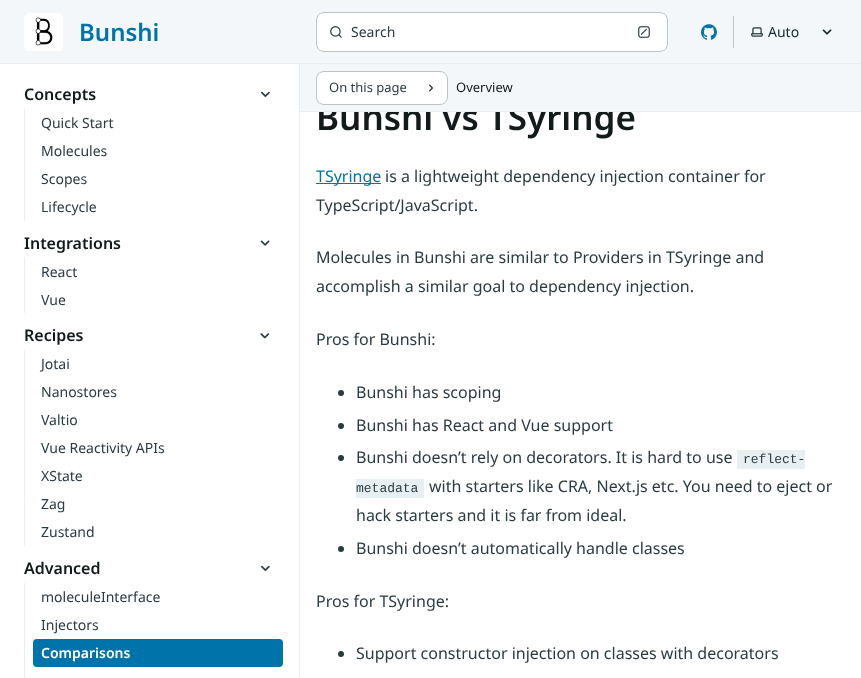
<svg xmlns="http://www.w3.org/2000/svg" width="861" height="678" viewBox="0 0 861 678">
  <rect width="100%" height="100%" fill="#ffffff"/>
  <rect x="0" y="0" width="861" height="63" fill="#f3f7f9"/>
  <rect x="0" y="63" width="861" height="1" fill="#e7eff2"/>
  <image x="24" y="13" width="39" height="38" href="img1.png"/>
  <text x="79" y="41" font-family="Noto Sans" font-size="24" font-weight="600" fill="#0073aa">Bunshi</text>
  <rect x="316.5" y="12.5" width="351" height="39" rx="7.5" fill="#ffffff" stroke="#bac4c8"/>
  <image x="330" y="26" width="12" height="12" href="img2.png"/>
  <text x="351" y="37" font-family="Noto Sans" font-size="14" fill="#2a3b41">Search</text>
  <image x="638" y="26" width="12" height="12" href="img3.png"/>
  <image x="701" y="24" width="16" height="16" href="img4.png"/>
  <rect x="733" y="16" width="1" height="32" fill="#bac4c8"/>
  <image x="751" y="27" width="12" height="10" href="img5.png"/>
  <text x="768" y="37" font-family="Noto Sans" font-size="14" fill="#182a2f">Auto</text>
  <image x="822" y="29" width="10" height="6" href="img6.png"/>
  <rect x="299" y="64" width="1" height="614" fill="#e7eff2"/>
  <text x="24" y="100" font-family="Noto Sans" font-size="16" font-weight="600" fill="#121a1c">Concepts</text>
  <image x="261" y="91" width="9" height="6" href="img7.png"/>
  <rect x="24" y="109" width="1" height="112" fill="#e7eff2"/>
  <text x="41" y="128" font-family="Noto Sans" font-size="14" fill="#2a3b41">Quick Start</text>
  <text x="41" y="156" font-family="Noto Sans" font-size="14" fill="#2a3b41">Molecules</text>
  <text x="41" y="184" font-family="Noto Sans" font-size="14" fill="#2a3b41">Scopes</text>
  <text x="41" y="212" font-family="Noto Sans" font-size="14" fill="#2a3b41">Lifecycle</text>
  <text x="24" y="249" font-family="Noto Sans" font-size="16" font-weight="600" fill="#121a1c">Integrations</text>
  <image x="260" y="240" width="10" height="6" href="img8.png"/>
  <rect x="24" y="257" width="1" height="56" fill="#e7eff2"/>
  <text x="41" y="277" font-family="Noto Sans" font-size="14" fill="#2a3b41">React</text>
  <text x="41" y="305" font-family="Noto Sans" font-size="14" fill="#2a3b41">Vue</text>
  <text x="24" y="341" font-family="Noto Sans" font-size="16" font-weight="600" fill="#121a1c">Recipes</text>
  <image x="260" y="333" width="10" height="6" href="img9.png"/>
  <rect x="24" y="350" width="1" height="196" fill="#e7eff2"/>
  <text x="41" y="369" font-family="Noto Sans" font-size="14" fill="#2a3b41">Jotai</text>
  <text x="41" y="397" font-family="Noto Sans" font-size="14" fill="#2a3b41">Nanostores</text>
  <text x="41" y="425" font-family="Noto Sans" font-size="14" fill="#2a3b41">Valtio</text>
  <text x="41" y="453" font-family="Noto Sans" font-size="14" fill="#2a3b41">Vue Reactivity APIs</text>
  <text x="41" y="481" font-family="Noto Sans" font-size="14" fill="#2a3b41">XState</text>
  <text x="41" y="509" font-family="Noto Sans" font-size="14" fill="#2a3b41">Zag</text>
  <text x="41" y="537" font-family="Noto Sans" font-size="14" fill="#2a3b41">Zustand</text>
  <text x="24" y="574" font-family="Noto Sans" font-size="16" font-weight="600" fill="#121a1c">Advanced</text>
  <image x="261" y="565" width="9" height="6" href="img10.png"/>
  <rect x="24" y="583" width="1" height="95" fill="#e7eff2"/>
  <text x="41" y="602" font-family="Noto Sans" font-size="14" fill="#2a3b41">moleculeInterface</text>
  <text x="41" y="630" font-family="Noto Sans" font-size="14" fill="#2a3b41">Injectors</text>
  <rect x="33" y="639" width="250" height="28" rx="4" fill="#0073aa"/>
  <text x="41" y="658" font-family="Noto Sans" font-size="14" font-weight="600" fill="#ffffff">Comparisons</text>
  <text x="316" y="130" font-family="Noto Sans" font-size="35" font-weight="600" fill="#121a1c">Bunshi vs TSyringe</text>
  <rect x="300" y="64" width="561" height="47" fill="#f3f7f9"/>
  <rect x="300" y="111" width="561" height="1" fill="#e7eff2"/>
  <rect x="316.5" y="71.5" width="131" height="33" rx="7.5" fill="#ffffff" stroke="#bac4c8"/>
  <text x="329" y="92" font-family="Noto Sans" font-size="13" fill="#2a3b41">On this page</text>
  <image x="429" y="84" width="4" height="8" href="img11.png"/>
  <text x="456" y="92" font-family="Noto Sans" font-size="13" fill="#121a1c">Overview</text>
  <rect x="316" y="183" width="65" height="1" fill="#0073aa"/>
  <text x="316" y="182" font-family="Noto Sans" font-size="16" fill="#0073aa">TSyringe</text>
  <text x="385" y="182" font-family="Noto Sans" font-size="16" fill="#2a3b41">is a lightweight dependency injection container for</text>
  <text x="316" y="211" font-family="Noto Sans" font-size="16" fill="#2a3b41">TypeScript/JavaScript.</text>
  <text x="316" y="263" font-family="Noto Sans" font-size="16" fill="#2a3b41">Molecules in Bunshi are similar to Providers in TSyringe and</text>
  <text x="316" y="292" font-family="Noto Sans" font-size="16" fill="#2a3b41">accomplish a similar goal to dependency injection.</text>
  <text x="316" y="345" font-family="Noto Sans" font-size="16" fill="#2a3b41">Pros for Bunshi:</text>
  <circle cx="341" cy="393" r="3" fill="#2a3b41"/>
  <text x="356" y="398" font-family="Noto Sans" font-size="16" fill="#2a3b41">Bunshi has scoping</text>
  <circle cx="341" cy="426" r="3" fill="#2a3b41"/>
  <text x="356" y="431" font-family="Noto Sans" font-size="16" fill="#2a3b41">Bunshi has React and Vue support</text>
  <circle cx="341" cy="458" r="3" fill="#2a3b41"/>
  <text x="356" y="463" font-family="Noto Sans" font-size="16" fill="#2a3b41">Bunshi doesn’t rely on decorators. It is hard to use</text>
  <rect x="737" y="450" width="68" height="19" fill="#e7eff2"/>
  <text x="743" y="463" font-family="Liberation Mono" font-size="13" fill="#2a3b41">reflect-</text>
  <rect x="356" y="479" width="68" height="19" fill="#e7eff2"/>
  <text x="356" y="492" font-family="Liberation Mono" font-size="13" fill="#2a3b41">metadata</text>
  <text x="429" y="492" font-family="Noto Sans" font-size="16" fill="#2a3b41">with starters like CRA, Next.js etc. You need to eject or</text>
  <text x="356" y="521" font-family="Noto Sans" font-size="16" fill="#2a3b41">hack starters and it is far from ideal.</text>
  <circle cx="341" cy="549" r="3" fill="#2a3b41"/>
  <text x="356" y="554" font-family="Noto Sans" font-size="16" fill="#2a3b41">Bunshi doesn’t automatically handle classes</text>
  <text x="316" y="607" font-family="Noto Sans" font-size="16" fill="#2a3b41">Pros for TSyringe:</text>
  <circle cx="341" cy="654" r="3" fill="#2a3b41"/>
  <text x="356" y="659" font-family="Noto Sans" font-size="16" fill="#2a3b41">Support constructor injection on classes with decorators</text>
</svg>
